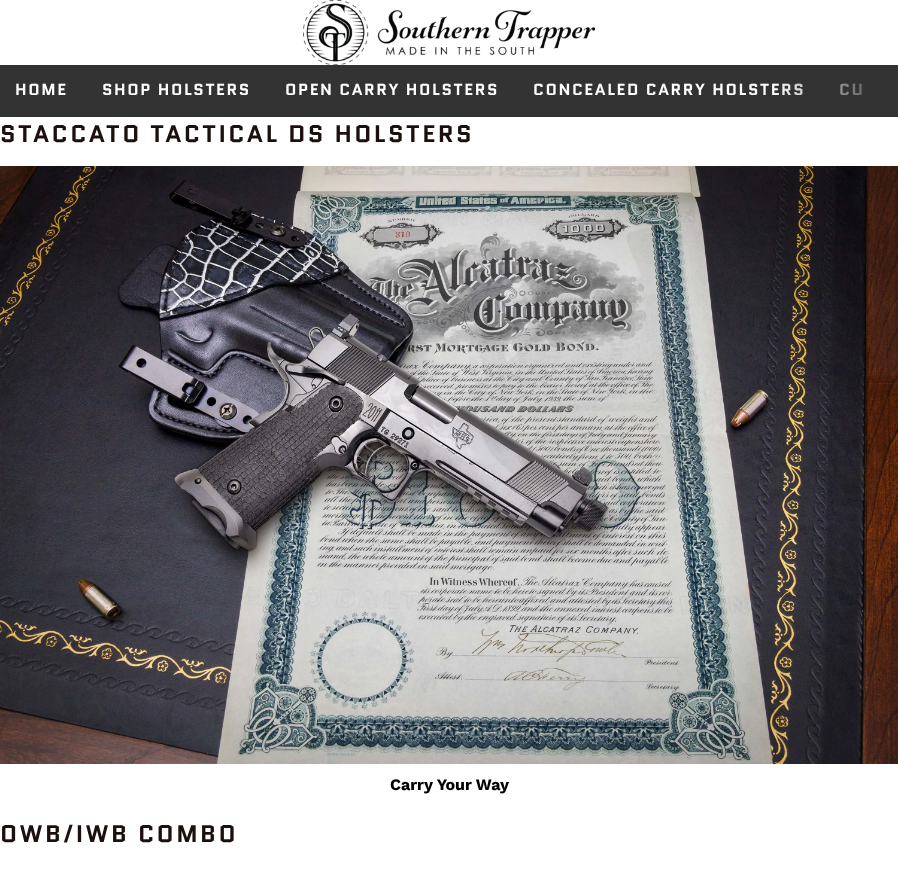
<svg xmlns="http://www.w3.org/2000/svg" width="898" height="876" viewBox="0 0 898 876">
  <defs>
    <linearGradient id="g1" gradientUnits="userSpaceOnUse" x1="773" y1="91" x2="898" y2="91"><stop offset="0" stop-color="#333333" stop-opacity="0"/><stop offset="1" stop-color="#333333"/></linearGradient>
  </defs>
  <rect width="100%" height="100%" fill="#ffffff"/>
  <image x="303" y="0" width="292" height="65" href="img1.png"/>
  <rect x="0" y="65" width="897" height="52" fill="#333333"/>
  <text x="533" y="95" font-family="Quantico" font-size="16" font-weight="bold" letter-spacing="1.6" fill="#ffffff">CONCEALED CARRY HOLSTERS</text>
  <text x="839" y="95" font-family="Quantico" font-size="16" font-weight="bold" letter-spacing="1.6" fill="#ffffff">CU</text>
  <rect x="776" y="65" width="122" height="52" fill="url(#g1)"/>
  <text x="15" y="95" font-family="Quantico" font-size="16" font-weight="bold" letter-spacing="1.6" fill="#ffffff">HOME</text>
  <text x="102" y="95" font-family="Quantico" font-size="16" font-weight="bold" letter-spacing="1.6" fill="#ffffff">SHOP HOLSTERS</text>
  <text x="285" y="95" font-family="Quantico" font-size="16" font-weight="bold" letter-spacing="1.6" fill="#ffffff">OPEN CARRY HOLSTERS</text>
  <text x="0" y="142" font-family="Quantico" font-size="24" font-weight="bold" letter-spacing="2.4" fill="#1b100e">STACCATO TACTICAL DS HOLSTERS</text>
  <image x="0" y="166" width="898" height="598" href="img2.png"/>
  <text x="390" y="790" font-family="Work Sans" font-size="16" font-weight="bold" fill="#000000">Carry Your Way</text>
  <text x="0" y="842" font-family="Quantico" font-size="24" font-weight="bold" letter-spacing="2.4" fill="#1b100e">OWB/IWB COMBO</text>
</svg>
